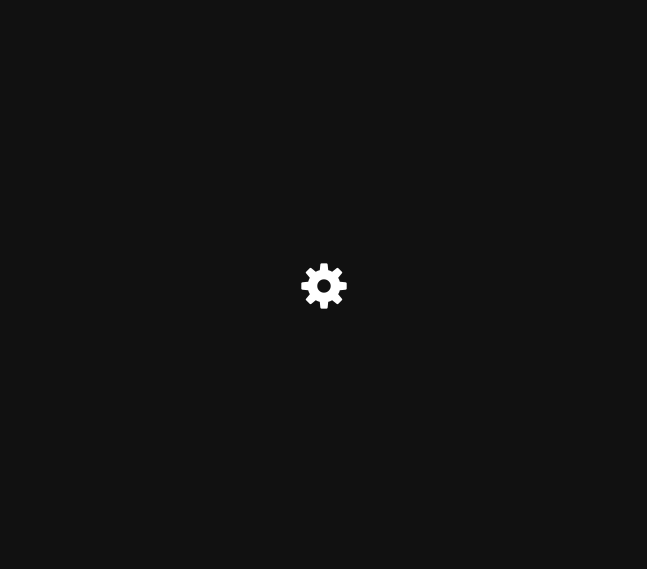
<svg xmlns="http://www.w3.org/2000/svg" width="647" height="569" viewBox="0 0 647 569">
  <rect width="100%" height="100%" fill="#111111"/>
  <image x="301" y="263" width="46" height="46" href="img1.png"/>
</svg>
